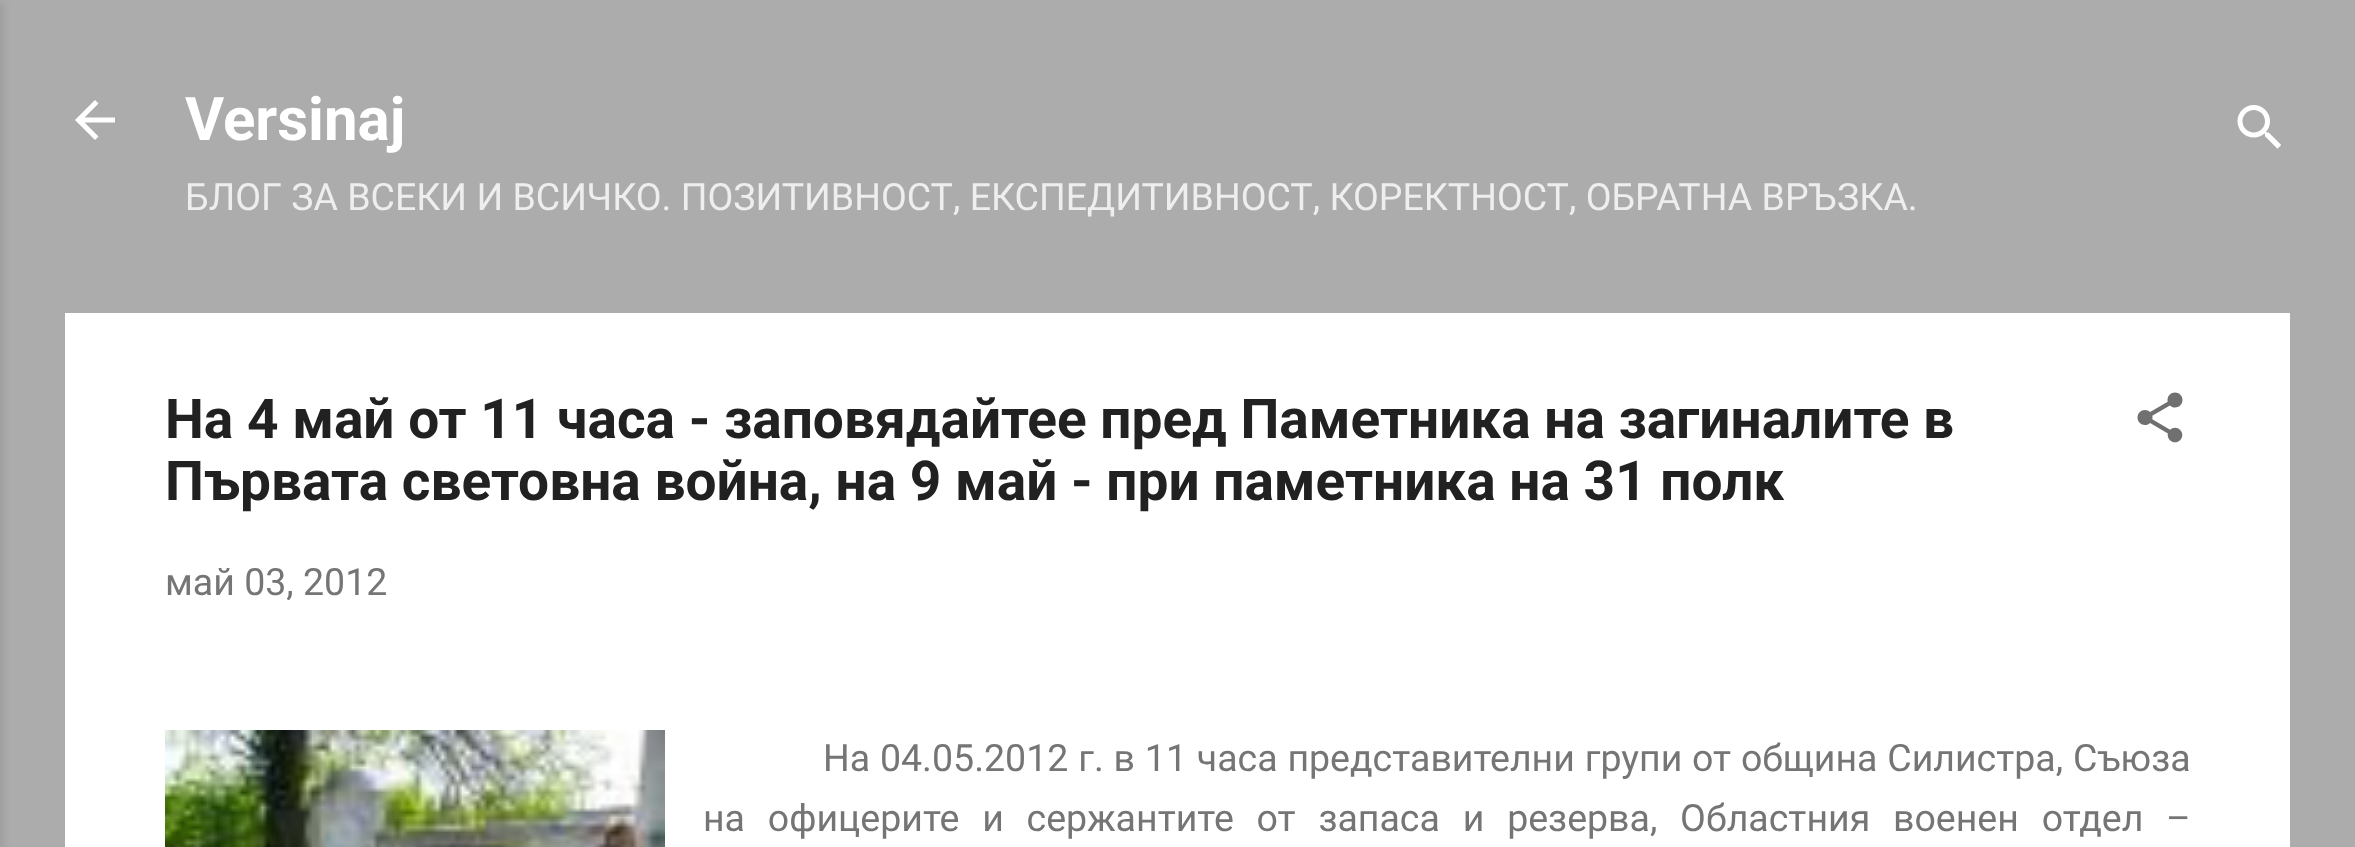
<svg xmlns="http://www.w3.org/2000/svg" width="2355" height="847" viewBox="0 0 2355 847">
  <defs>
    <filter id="blur1" x="-50%" y="-200%" width="200%" height="500%"><feGaussianBlur stdDeviation="4"/></filter>
  </defs>
  <rect width="100%" height="100%" fill="#acacac"/>
  <rect x="-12" y="3" width="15" height="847" fill="#000000" fill-opacity="0.1" filter="url(#blur1)"/>
  <image x="75" y="100" width="40" height="40" href="img1.png"/>
  <text x="185" y="140" font-family="Roboto" font-size="60" font-weight="bold" fill="#ffffff">Versinaj</text>
  <text x="185" y="210" font-family="Roboto" font-size="37.5" fill="#eeeeee">БЛОГ ЗА ВСЕКИ И ВСИЧКО. ПОЗИТИВНОСТ, ЕКСПЕДИТИВНОСТ, КОРЕКТНОСТ, ОБРАТНА ВРЪЗКА.</text>
  <image x="2237" y="105" width="44" height="44" href="img2.png"/>
  <rect x="65" y="313" width="2225" height="534" fill="#ffffff"/>
  <text x="165" y="438" font-family="Roboto" font-size="55" font-weight="bold" fill="#212121">На 4 май от 11 часа - заповядайтее пред Паметника на загиналите в</text>
  <text x="165" y="500" font-family="Roboto" font-size="55" font-weight="bold" fill="#212121">Първата световна война, на 9 май - при паметника на 31 полк</text>
  <image x="2137" y="392" width="46" height="51" href="img3.png"/>
  <text x="165" y="595" font-family="Roboto" font-size="37.5" fill="#757575">май 03, 2012</text>
  <image x="165" y="730" width="500" height="117" href="img4.png"/>
  <text x="823" y="771" word-spacing="0.5" font-family="Roboto" font-size="37.5" fill="#757575">На 04.05.2012 г. в 11 часа представителни групи от община Силистра, Съюза</text>
  <text x="703" y="831" word-spacing="13.5" font-family="Roboto" font-size="37.5" fill="#757575">на офицерите и сержантите от запаса и резерва, Областния военен отдел –</text>
</svg>
